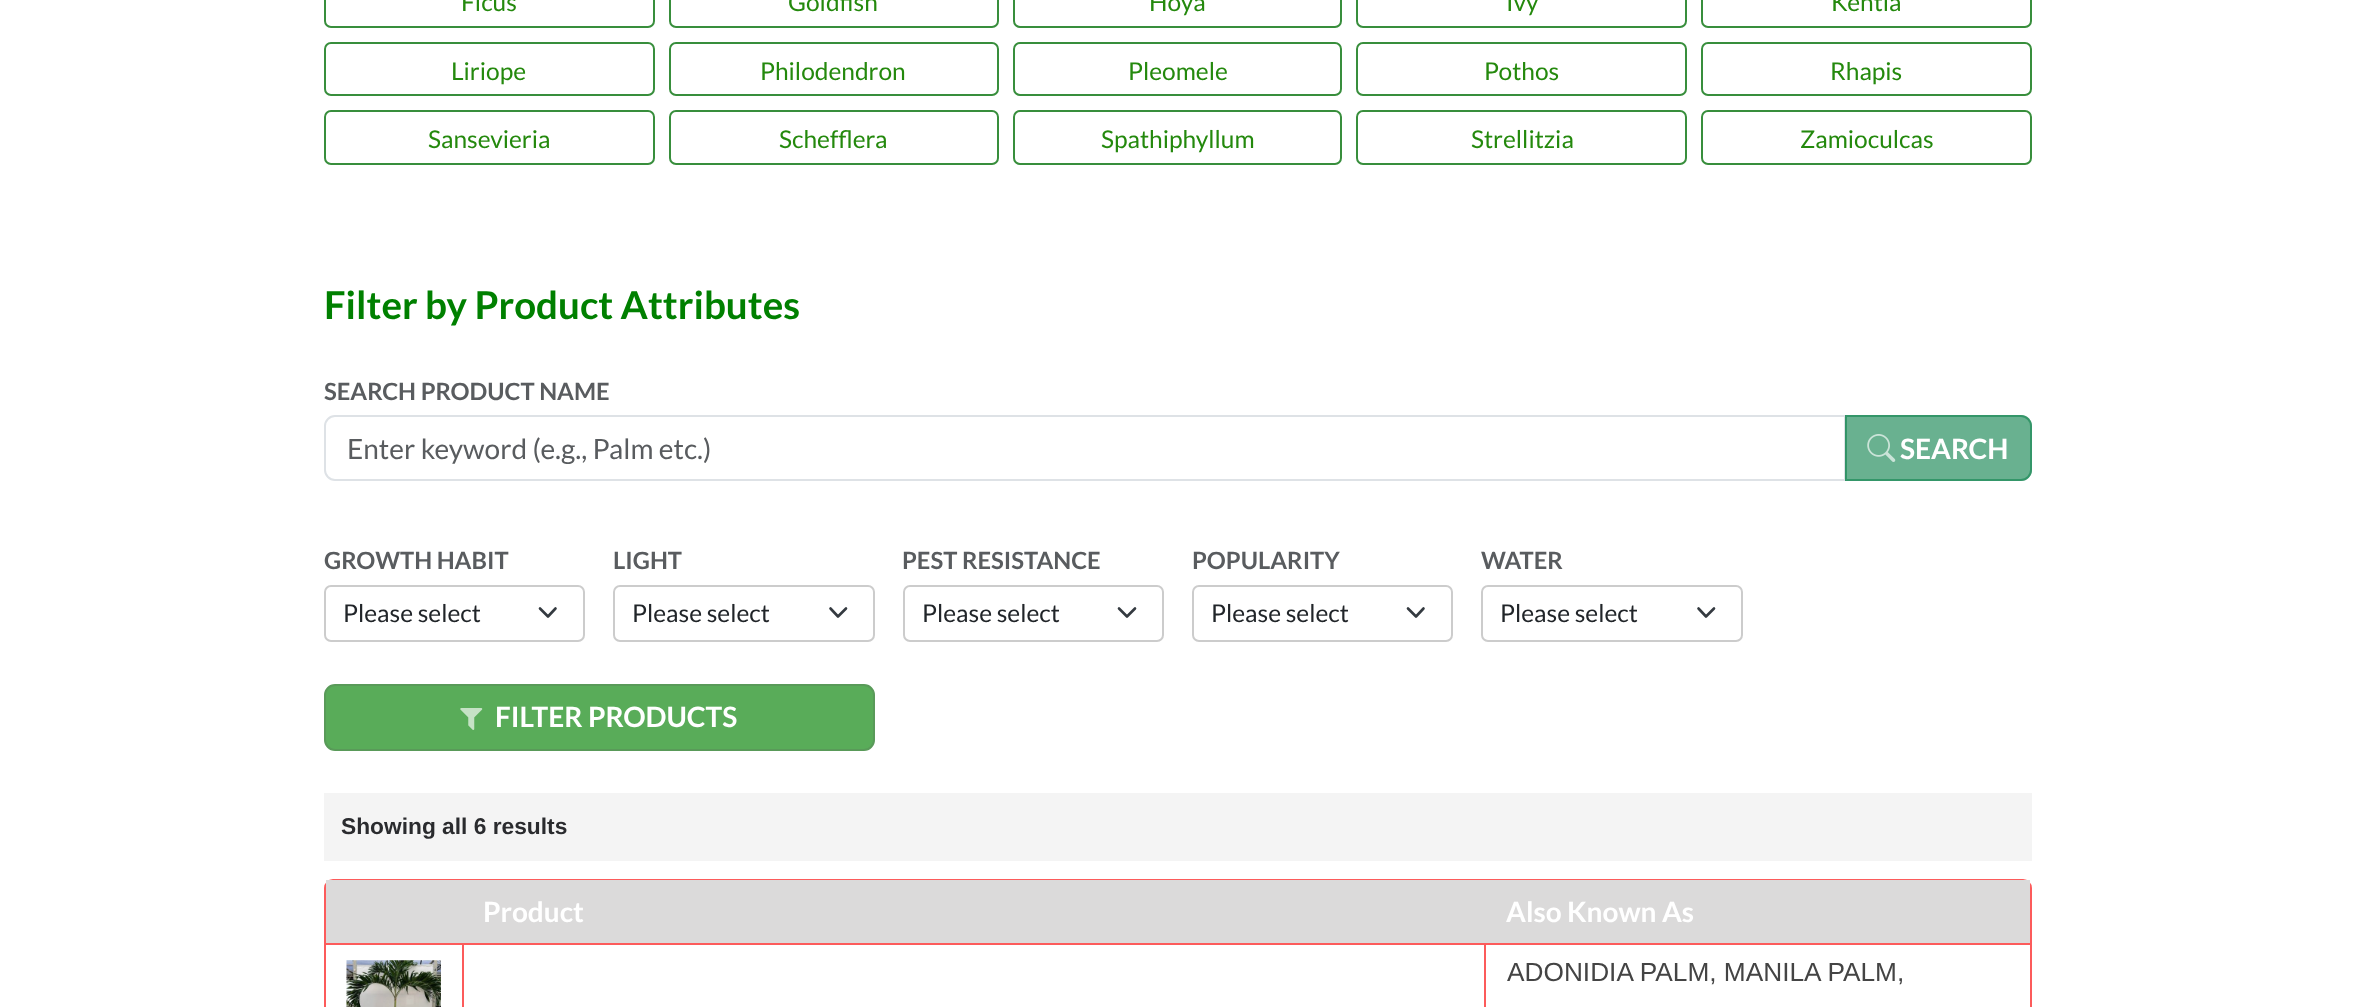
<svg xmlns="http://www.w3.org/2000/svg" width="2355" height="1007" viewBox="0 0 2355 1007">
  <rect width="100%" height="100%" fill="#ffffff"/>
  <rect x="325" y="-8" width="329" height="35" rx="6" fill="none" stroke="#388e3c" stroke-width="2"/>
  <text x="461" y="11" font-family="Lato" font-size="24.5" fill="#24890d">Ficus</text>
  <rect x="670" y="-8" width="328" height="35" rx="6" fill="none" stroke="#388e3c" stroke-width="2"/>
  <text x="788" y="11" font-family="Lato" font-size="24.5" fill="#24890d">Goldfish</text>
  <rect x="1014" y="-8" width="327" height="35" rx="6" fill="none" stroke="#388e3c" stroke-width="2"/>
  <text x="1149" y="11" font-family="Lato" font-size="24.5" fill="#24890d">Hoya</text>
  <rect x="1357" y="-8" width="329" height="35" rx="6" fill="none" stroke="#388e3c" stroke-width="2"/>
  <text x="1506" y="11" font-family="Lato" font-size="24.5" fill="#24890d">Ivy</text>
  <rect x="1702" y="-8" width="329" height="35" rx="6" fill="none" stroke="#388e3c" stroke-width="2"/>
  <text x="1831" y="11" font-family="Lato" font-size="24.5" fill="#24890d">Kentia</text>
  <rect x="325" y="43" width="329" height="52" rx="6" fill="none" stroke="#388e3c" stroke-width="2"/>
  <text x="451" y="80" font-family="Lato" font-size="24.5" fill="#24890d">Liriope</text>
  <rect x="670" y="43" width="328" height="52" rx="6" fill="none" stroke="#388e3c" stroke-width="2"/>
  <text x="760" y="80" font-family="Lato" font-size="24.5" fill="#24890d">Philodendron</text>
  <rect x="1014" y="43" width="327" height="52" rx="6" fill="none" stroke="#388e3c" stroke-width="2"/>
  <text x="1128" y="80" font-family="Lato" font-size="24.5" fill="#24890d">Pleomele</text>
  <rect x="1357" y="43" width="329" height="52" rx="6" fill="none" stroke="#388e3c" stroke-width="2"/>
  <text x="1484" y="80" font-family="Lato" font-size="24.5" fill="#24890d">Pothos</text>
  <rect x="1702" y="43" width="329" height="52" rx="6" fill="none" stroke="#388e3c" stroke-width="2"/>
  <text x="1830" y="80" font-family="Lato" font-size="24.5" fill="#24890d">Rhapis</text>
  <rect x="325" y="111" width="329" height="53" rx="6" fill="none" stroke="#388e3c" stroke-width="2"/>
  <text x="428" y="148" font-family="Lato" font-size="24.5" fill="#24890d">Sansevieria</text>
  <rect x="670" y="111" width="328" height="53" rx="6" fill="none" stroke="#388e3c" stroke-width="2"/>
  <text x="779" y="148" font-family="Lato" font-size="24.5" fill="#24890d">Schefflera</text>
  <rect x="1014" y="111" width="327" height="53" rx="6" fill="none" stroke="#388e3c" stroke-width="2"/>
  <text x="1101" y="148" font-family="Lato" font-size="24.5" fill="#24890d">Spathiphyllum</text>
  <rect x="1357" y="111" width="329" height="53" rx="6" fill="none" stroke="#388e3c" stroke-width="2"/>
  <text x="1471" y="148" font-family="Lato" font-size="24.5" fill="#24890d">Strellitzia</text>
  <rect x="1702" y="111" width="329" height="53" rx="6" fill="none" stroke="#388e3c" stroke-width="2"/>
  <text x="1800" y="148" font-family="Lato" font-size="24.5" fill="#24890d">Zamioculcas</text>
  <text x="324" y="319" font-family="Lato" font-size="38.5" font-weight="bold" fill="#008000">Filter by Product Attributes</text>
  <text x="324" y="400" font-family="Lato" font-size="23.75" font-weight="bold" fill="#595c5f">SEARCH PRODUCT NAME</text>
  <path d="M335 416H1845V480H335C329.5 480 325 475.5 325 470V426C325 420.5 329.5 416 335 416Z" fill="none" stroke="#dee2e6" stroke-width="2"/>
  <text x="347" y="459" font-family="Lato" font-size="28" fill="#595c5f">Enter keyword (e.g., Palm etc.)</text>
  <path d="M1845 415H2021C2027 415 2032 420 2032 426V470C2032 476 2027 481 2021 481H1845Z" fill="#198754" fill-opacity="0.65"/>
  <path d="M1846 416H2021C2026.5 416 2031 420.5 2031 426V470C2031 475.5 2026.5 480 2021 480H1846Z" fill="none" stroke="#198754" stroke-opacity="0.65" stroke-width="2"/>
  <image x="1867" y="434" width="29" height="28" href="img1.png"/>
  <text x="1900" y="459" font-family="Lato" font-size="28" font-weight="bold" fill="#ffffff">SEARCH</text>
  <text x="324" y="569" font-family="Lato" font-size="23.75" font-weight="bold" fill="#595c5f">GROWTH HABIT</text>
  <path d="M540 608.5L548 616.5L555.5 608.5" fill="none" stroke="#343a40" stroke-width="2.6" stroke-linecap="round" stroke-linejoin="round"/>
  <rect x="325" y="586" width="259" height="55" rx="6" fill="none" stroke="#cccccc" stroke-width="2"/>
  <text x="343" y="622" font-family="Lato" font-size="24.5" fill="#212529">Please select</text>
  <text x="613" y="569" font-family="Lato" font-size="23.75" font-weight="bold" fill="#595c5f">LIGHT</text>
  <path d="M830.5 608.5L838 616.5L846 608.5" fill="none" stroke="#343a40" stroke-width="2.6" stroke-linecap="round" stroke-linejoin="round"/>
  <rect x="614" y="586" width="260" height="55" rx="6" fill="none" stroke="#cccccc" stroke-width="2"/>
  <text x="632" y="622" font-family="Lato" font-size="24.5" fill="#212529">Please select</text>
  <text x="902" y="569" font-family="Lato" font-size="23.75" font-weight="bold" fill="#595c5f">PEST RESISTANCE</text>
  <path d="M1119 608.5L1127 616.5L1135 608.5" fill="none" stroke="#343a40" stroke-width="2.6" stroke-linecap="round" stroke-linejoin="round"/>
  <rect x="904" y="586" width="259" height="55" rx="6" fill="none" stroke="#cccccc" stroke-width="2"/>
  <text x="922" y="622" font-family="Lato" font-size="24.5" fill="#212529">Please select</text>
  <text x="1192" y="569" font-family="Lato" font-size="23.75" font-weight="bold" fill="#595c5f">POPULARITY</text>
  <path d="M1408 608.5L1416 616.5L1423.5 608.5" fill="none" stroke="#343a40" stroke-width="2.6" stroke-linecap="round" stroke-linejoin="round"/>
  <rect x="1193" y="586" width="259" height="55" rx="6" fill="none" stroke="#cccccc" stroke-width="2"/>
  <text x="1211" y="622" font-family="Lato" font-size="24.5" fill="#212529">Please select</text>
  <text x="1481" y="569" font-family="Lato" font-size="23.75" font-weight="bold" fill="#595c5f">WATER</text>
  <path d="M1698.5 608.5L1706 616.5L1714 608.5" fill="none" stroke="#343a40" stroke-width="2.6" stroke-linecap="round" stroke-linejoin="round"/>
  <rect x="1482" y="586" width="260" height="55" rx="6" fill="none" stroke="#cccccc" stroke-width="2"/>
  <text x="1500" y="622" font-family="Lato" font-size="24.5" fill="#212529">Please select</text>
  <rect x="325" y="685" width="549" height="65" rx="10" fill="#59ac59" stroke="#599a59" stroke-width="2"/>
  <image x="460" y="708" width="23" height="22" href="img2.png"/>
  <text x="495" y="727" font-family="Lato" font-size="28" font-weight="bold" fill="#ffffff">FILTER PRODUCTS</text>
  <rect x="324" y="793" width="1708" height="68" fill="#f4f4f4"/>
  <text x="341" y="834" font-family="Liberation Sans" font-size="22.75" font-weight="bold" fill="#2a2b2e">Showing all 6 results</text>
  <rect x="325" y="880" width="1706" height="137" rx="8" fill="none" stroke="#fc5b5b" stroke-width="2"/>
  <rect x="326" y="880" width="1704" height="63" fill="#dbdada"/>
  <text x="483" y="922" font-family="Lato" font-size="28" font-weight="bold" fill="#ffffff">Product</text>
  <text x="1506" y="922" font-family="Lato" font-size="28" font-weight="bold" fill="#ffffff">Also Known As</text>
  <rect x="326" y="943" width="1704" height="2" fill="#fc5b5b"/>
  <image x="346" y="960" width="95" height="47" href="img3.png"/>
  <rect x="462" y="943" width="2" height="64" fill="#fc5b5b"/>
  <rect x="1484" y="943" width="2" height="64" fill="#fc5b5b"/>
  <text x="1507" y="981" font-family="Liberation Sans" font-size="26.25" fill="#444444">ADONIDIA PALM, MANILA PALM,</text>
</svg>
